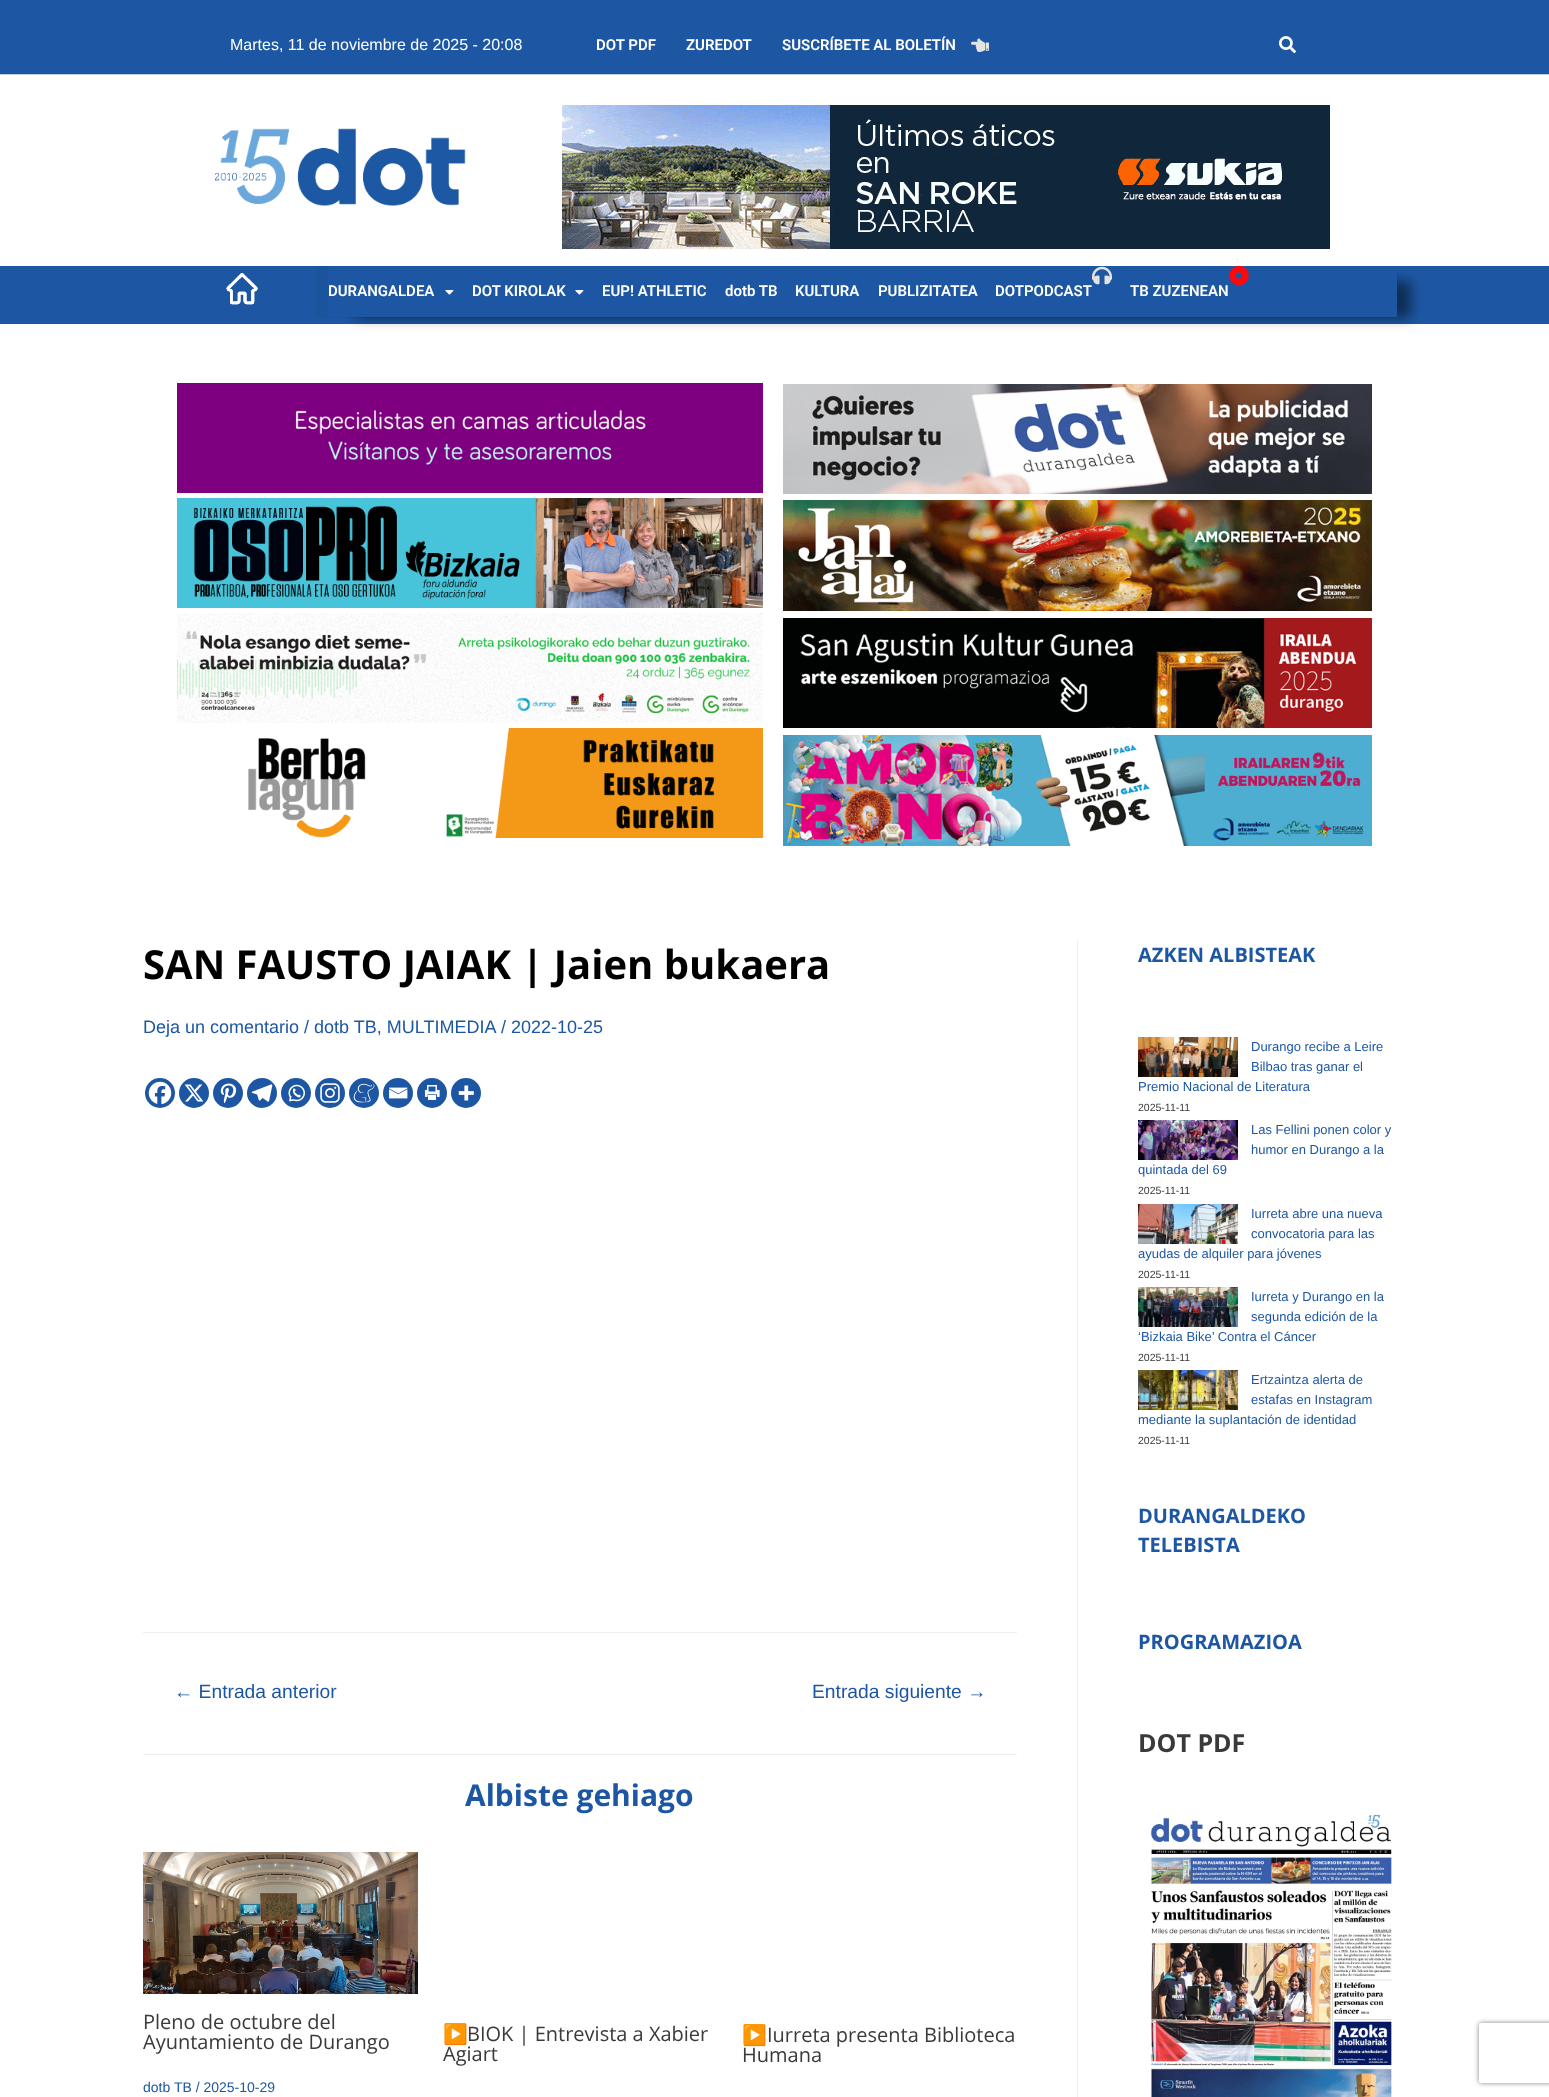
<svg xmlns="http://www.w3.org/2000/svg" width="1549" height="2097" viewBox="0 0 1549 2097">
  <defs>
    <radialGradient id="g1" gradientUnits="userSpaceOnUse" cx="0" cy="0" r="1" gradientTransform="matrix(1095 0 0 106 775 0)"><stop offset="1" stop-color="#1d57a4"/><stop offset="1" stop-color="#ffffff"/></radialGradient>
    <radialGradient id="g2" gradientUnits="userSpaceOnUse" cx="0" cy="0" r="1" gradientTransform="matrix(1095 0 0 106 775 0)"><stop offset="1" stop-color="#becee3"/><stop offset="1" stop-color="#fdfdfd"/></radialGradient>
    <filter id="blur1" x="-50%" y="-200%" width="200%" height="500%"><feGaussianBlur stdDeviation="6.5"/></filter>
    <clipPath id="clip1"><path d="M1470 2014H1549V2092H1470ZM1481 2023H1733C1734 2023 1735 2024 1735 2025V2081C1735 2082 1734 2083 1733 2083H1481C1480 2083 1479 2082 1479 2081V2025C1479 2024 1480 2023 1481 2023Z" clip-rule="evenodd"/></clipPath>
    <filter id="blur2" x="-50%" y="-200%" width="200%" height="500%"><feGaussianBlur stdDeviation="2.5"/></filter>
  </defs>
  <rect width="100%" height="100%" fill="#ffffff"/>
  <rect x="0" y="0" width="1549" height="74" fill="url(#g1)"/>
  <rect x="0" y="74" width="1549" height="1" fill="url(#g2)"/>
  <text x="230" y="50" font-family="Liberation Sans" font-size="16" fill="#ffffff">Martes, 11 de noviembre de 2025 - 20:08</text>
  <text x="596" y="50" font-family="Roboto" font-size="15" font-weight="600" fill="#ffffff">DOT PDF</text>
  <text x="686" y="50" font-family="Roboto" font-size="15" font-weight="600" fill="#ffffff">ZUREDOT</text>
  <text x="782" y="50" font-family="Roboto" font-size="15" font-weight="600" fill="#ffffff">SUSCRÍBETE AL BOLETÍN</text>
  <image x="971" y="38" width="18" height="14" href="img1.png"/>
  <image x="1279" y="36" width="17" height="18" href="img2.png"/>
  <image x="215" y="128" width="251" height="78" href="img3.png"/>
  <image x="562" y="105" width="768" height="144" href="img4.png"/>
  <rect x="0" y="266" width="1549" height="58" fill="#1d57a4"/>
  <image x="226" y="273" width="32" height="32" href="img5.png"/>
  <rect x="316" y="266" width="1081" height="52" fill="#1c539d"/>
  <rect x="356" y="281" width="1055" height="37" fill="#000000" fill-opacity="0.5" filter="url(#blur1)"/>
  <rect x="328" y="266" width="1069" height="51" fill="#1d57a4"/>
  <text x="328" y="296" font-family="Roboto" font-size="15" font-weight="600" fill="#ffffff">DURANGALDEA</text>
  <image x="445" y="290" width="9" height="5" href="img6.png"/>
  <text x="472" y="296" font-family="Roboto" font-size="15" font-weight="600" fill="#ffffff">DOT KIROLAK</text>
  <image x="575" y="290" width="9" height="5" href="img6.png"/>
  <text x="602" y="296" font-family="Roboto" font-size="15" font-weight="600" fill="#ffffff">EUP! ATHLETIC</text>
  <text x="725" y="296" font-family="Roboto" font-size="15" font-weight="600" fill="#ffffff">dotb TB</text>
  <text x="795" y="296" font-family="Roboto" font-size="15" font-weight="600" fill="#ffffff">KULTURA</text>
  <text x="878" y="296" font-family="Roboto" font-size="15" font-weight="600" fill="#ffffff">PUBLIZITATEA</text>
  <image x="1092" y="266" width="20" height="19" href="img7.png"/>
  <text x="995" y="296" font-family="Roboto" font-size="15" font-weight="600" fill="#ffffff">DOTPODCAST</text>
  <image x="1229" y="265" width="20" height="21" href="img8.png"/>
  <text x="1130" y="296" font-family="Roboto" font-size="15" font-weight="600" fill="#ffffff">TB ZUZENEAN</text>
  <image x="177" y="383" width="586" height="110" href="img9.png"/>
  <image x="177" y="498" width="586" height="110" href="img10.png"/>
  <image x="177" y="613" width="586" height="110" href="img11.png"/>
  <image x="248" y="728" width="515" height="110" href="img12.png"/>
  <image x="783" y="384" width="589" height="110" href="img13.png"/>
  <image x="783" y="500" width="589" height="111" href="img14.png"/>
  <image x="783" y="618" width="589" height="110" href="img15.png"/>
  <image x="783" y="735" width="589" height="111" href="img16.png"/>
  <rect x="1077" y="940" width="1" height="1157" fill="#eeeeee"/>
  <text x="143" y="979" font-family="Open Sans" font-size="40" font-weight="bold" fill="#000000">SAN FAUSTO JAIAK | Jaien bukaera</text>
  <text x="143" y="1033" font-family="Liberation Sans" font-size="18" fill="#1d57a4">Deja un comentario / dotb TB, MULTIMEDIA</text>
  <text x="501" y="1033" font-family="Liberation Sans" font-size="18" fill="#1d57a4">/ 2022-10-25</text>
  <circle cx="160" cy="1093" r="15" fill="#1d57a4"/>
  <image x="148" y="1081" width="24" height="24" href="img17.png"/>
  <circle cx="194" cy="1093" r="15" fill="#1d57a4"/>
  <image x="184" y="1084" width="20" height="18" href="img18.png"/>
  <circle cx="228" cy="1093" r="15" fill="#1d57a4"/>
  <image x="220" y="1083" width="17" height="21" href="img19.png"/>
  <circle cx="262" cy="1093" r="15" fill="#1d57a4"/>
  <image x="251" y="1084" width="22" height="18" href="img20.png"/>
  <circle cx="296" cy="1093" r="15" fill="#1d57a4"/>
  <image x="288" y="1084" width="17" height="18" href="img21.png"/>
  <circle cx="330" cy="1093" r="15" fill="#1d57a4"/>
  <image x="320" y="1083" width="20" height="20" href="img22.png"/>
  <circle cx="364" cy="1093" r="15" fill="#1d57a4"/>
  <image x="353" y="1083" width="22" height="20" href="img23.png"/>
  <circle cx="398" cy="1093" r="15" fill="#1d57a4"/>
  <image x="389" y="1087" width="19" height="12" href="img24.png"/>
  <circle cx="432" cy="1093" r="15" fill="#1d57a4"/>
  <image x="424" y="1085" width="16" height="15" href="img25.png"/>
  <circle cx="466" cy="1093" r="15" fill="#1d57a4"/>
  <image x="458" y="1085" width="16" height="16" href="img26.png"/>
  <rect x="143" y="1632" width="874" height="1" fill="#eeeeee"/>
  <text x="174" y="1698" font-family="Liberation Sans" font-size="19.25" fill="#1d57a4">← Entrada anterior</text>
  <text x="812" y="1698" font-family="Liberation Sans" font-size="19.25" fill="#1d57a4">Entrada siguiente →</text>
  <rect x="143" y="1754" width="874" height="1" fill="#eeeeee"/>
  <text x="465" y="1806" font-family="Open Sans" font-size="30" font-weight="bold" fill="#1d57a4">Albiste gehiago</text>
  <image x="143" y="1852" width="275" height="142" href="img27.png"/>
  <text x="143" y="2029" font-family="Open Sans" font-size="20" fill="#3a3a3a">Pleno de octubre del</text>
  <text x="143" y="2049" font-family="Open Sans" font-size="20" fill="#3a3a3a">Ayuntamiento de Durango</text>
  <text x="143" y="2092" font-family="Liberation Sans" font-size="14" fill="#1d57a4">dotb TB / 2025-10-29</text>
  <text x="443" y="2041" font-family="Noto Color Emoji" font-size="20" fill="#3a3a3a">▶️</text>
  <text x="467" y="2041" font-family="Open Sans" font-size="20" fill="#3a3a3a">BIOK | Entrevista a Xabier</text>
  <text x="443" y="2061" font-family="Open Sans" font-size="20" fill="#3a3a3a">Agiart</text>
  <text x="742" y="2042" font-family="Noto Color Emoji" font-size="20" fill="#3a3a3a">▶️</text>
  <text x="767" y="2042" font-family="Open Sans" font-size="20" fill="#3a3a3a">Iurreta presenta Biblioteca</text>
  <text x="742" y="2062" font-family="Open Sans" font-size="20" fill="#3a3a3a">Humana</text>
  <text x="1138" y="962" font-family="Open Sans" font-size="20" font-weight="bold" fill="#1d57a4">AZKEN ALBISTEAK</text>
  <image x="1138" y="1037" width="100" height="40" href="img28.png"/>
  <text x="1251" y="1051" font-family="Liberation Sans" font-size="13" fill="#1d57a4">Durango recibe a Leire</text>
  <text x="1251" y="1071" font-family="Liberation Sans" font-size="13" fill="#1d57a4">Bilbao tras ganar el</text>
  <text x="1138" y="1091" font-family="Liberation Sans" font-size="13" fill="#1d57a4">Premio Nacional de Literatura</text>
  <text x="1138" y="1111" font-family="Liberation Sans" font-size="10.5" fill="#3a3a3a">2025-11-11</text>
  <image x="1138" y="1120" width="100" height="40" href="img29.png"/>
  <text x="1251" y="1134" font-family="Liberation Sans" font-size="13" fill="#1d57a4">Las Fellini ponen color y</text>
  <text x="1251" y="1154" font-family="Liberation Sans" font-size="13" fill="#1d57a4">humor en Durango a la</text>
  <text x="1138" y="1174" font-family="Liberation Sans" font-size="13" fill="#1d57a4">quintada del 69</text>
  <text x="1138" y="1194" font-family="Liberation Sans" font-size="10.5" fill="#3a3a3a">2025-11-11</text>
  <image x="1138" y="1204" width="100" height="40" href="img30.png"/>
  <text x="1251" y="1218" font-family="Liberation Sans" font-size="13" fill="#1d57a4">Iurreta abre una nueva</text>
  <text x="1251" y="1238" font-family="Liberation Sans" font-size="13" fill="#1d57a4">convocatoria para las</text>
  <text x="1138" y="1258" font-family="Liberation Sans" font-size="13" fill="#1d57a4">ayudas de alquiler para jóvenes</text>
  <text x="1138" y="1278" font-family="Liberation Sans" font-size="10.5" fill="#3a3a3a">2025-11-11</text>
  <image x="1138" y="1287" width="100" height="40" href="img31.png"/>
  <text x="1251" y="1301" font-family="Liberation Sans" font-size="13" fill="#1d57a4">Iurreta y Durango en la</text>
  <text x="1251" y="1321" font-family="Liberation Sans" font-size="13" fill="#1d57a4">segunda edición de la</text>
  <text x="1138" y="1341" font-family="Liberation Sans" font-size="13" fill="#1d57a4">‘Bizkaia Bike’ Contra el Cáncer</text>
  <text x="1138" y="1361" font-family="Liberation Sans" font-size="10.5" fill="#3a3a3a">2025-11-11</text>
  <image x="1138" y="1370" width="100" height="40" href="img32.png"/>
  <text x="1251" y="1384" font-family="Liberation Sans" font-size="13" fill="#1d57a4">Ertzaintza alerta de</text>
  <text x="1251" y="1404" font-family="Liberation Sans" font-size="13" fill="#1d57a4">estafas en Instagram</text>
  <text x="1138" y="1424" font-family="Liberation Sans" font-size="13" fill="#1d57a4">mediante la suplantación de identidad</text>
  <text x="1138" y="1444" font-family="Liberation Sans" font-size="10.5" fill="#3a3a3a">2025-11-11</text>
  <text x="1138" y="1523" font-family="Open Sans" font-size="20" font-weight="bold" fill="#1d57a4">DURANGALDEKO</text>
  <text x="1138" y="1552" font-family="Open Sans" font-size="20" font-weight="bold" fill="#1d57a4">TELEBISTA</text>
  <text x="1138" y="1649" font-family="Open Sans" font-size="20" font-weight="bold" fill="#1d57a4">PROGRAMAZIOA</text>
  <text x="1138" y="1752" font-family="Open Sans" font-size="25" font-weight="bold" fill="#3a3a3a">DOT PDF</text>
  <image x="1150" y="1814" width="242" height="283" href="img33.png"/>
  <g clip-path="url(#clip1)">
    <rect x="1479" y="2023" width="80" height="60" rx="2" fill="#808080" filter="url(#blur2)"/>
  </g>
</svg>
